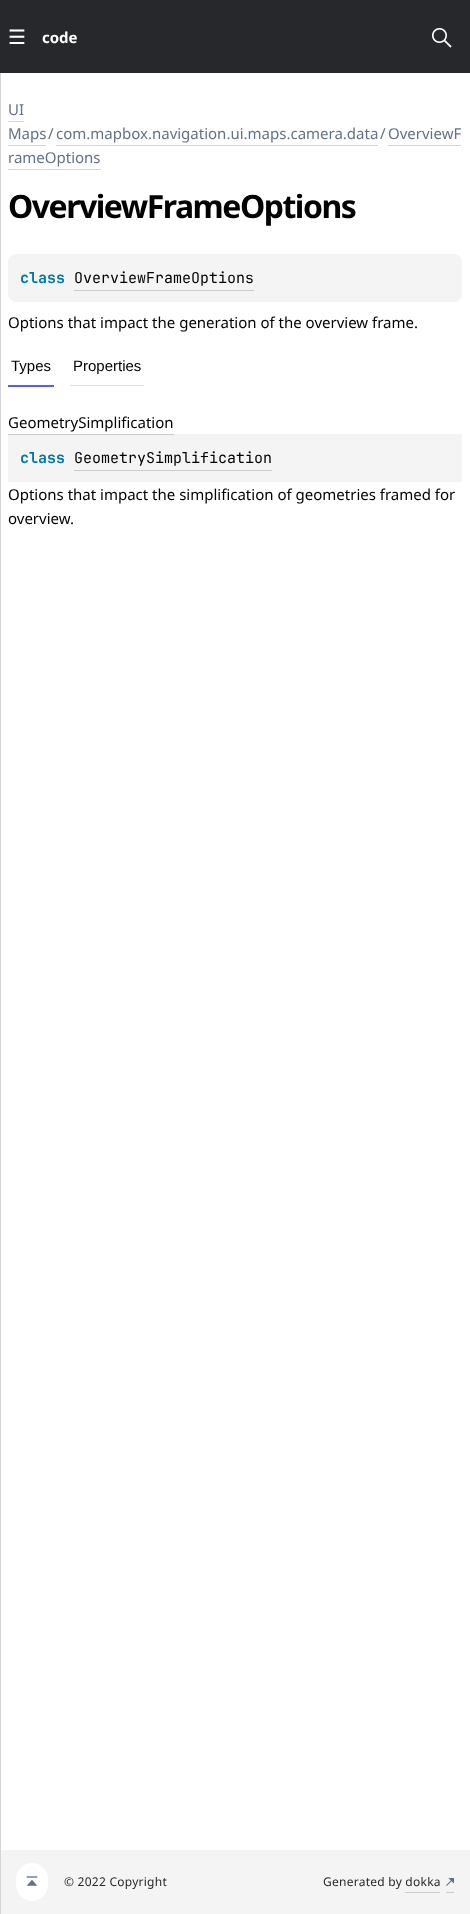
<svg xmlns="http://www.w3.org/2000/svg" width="470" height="1914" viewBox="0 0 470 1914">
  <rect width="100%" height="100%" fill="#ffffff"/>
  <rect x="0" y="0" width="470" height="73" fill="#27282c"/>
  <text x="8" y="44" font-family="DejaVu Sans" font-size="20" fill="#ffffff">☰</text>
  <text x="42" y="43" font-family="Noto Sans" font-size="15" font-weight="bold" fill="#ffffff">code</text>
  <image x="432" y="28" width="20" height="20" href="img1.png"/>
  <rect x="0" y="73" width="1" height="1841" fill="#d4d4d5"/>
  <text x="8" y="115" font-family="Noto Sans" font-size="15" fill="#637282">UI</text>
  <rect x="8" y="121" width="16" height="1" fill="#d4d4d5"/>
  <text x="8" y="139" font-family="Noto Sans" font-size="15" fill="#637282">Maps</text>
  <rect x="8" y="145" width="38" height="1" fill="#d4d4d5"/>
  <text x="48" y="139" font-family="Noto Sans" font-size="15" fill="#637282">/</text>
  <text x="56" y="139" font-family="Noto Sans" font-size="15" fill="#637282">com.mapbox.navigation.ui.maps.camera.data</text>
  <rect x="56" y="145" width="322" height="1" fill="#d4d4d5"/>
  <text x="380" y="139" font-family="Noto Sans" font-size="15" fill="#637282">/</text>
  <text x="388" y="139" font-family="Noto Sans" font-size="15" fill="#637282">OverviewF</text>
  <rect x="388" y="145" width="73" height="1" fill="#d4d4d5"/>
  <text x="8" y="163" font-family="Noto Sans" font-size="15" fill="#637282">rameOptions</text>
  <rect x="8" y="169" width="93" height="1" fill="#d4d4d5"/>
  <text x="8" y="218" font-family="Noto Sans" font-size="32" font-weight="bold" letter-spacing="-1.5" fill="#000000">OverviewFrameOptions</text>
  <rect x="8" y="254" width="454" height="48" rx="8" fill="#f4f4f4"/>
  <text x="20" y="283" font-family="JetBrains Mono" font-size="15" font-weight="bold" fill="#0077aa">class</text>
  <text x="74" y="283" font-family="JetBrains Mono" font-size="15" fill="#000000">OverviewFrameOptions</text>
  <rect x="74" y="290" width="180" height="1" fill="#cbcbcc"/>
  <text x="8" y="328" font-family="Noto Sans" font-size="15" fill="#000000">Options that impact the generation of the overview frame.</text>
  <rect x="8" y="385" width="46" height="2" fill="#5b5def"/>
  <text x="11" y="371" font-family="Liberation Sans" font-size="15" fill="#000000">Types</text>
  <rect x="70" y="385" width="74" height="1" fill="#dadfe6"/>
  <text x="73" y="371" font-family="Liberation Sans" font-size="15" fill="#000000">Properties</text>
  <text x="8" y="428" font-family="Noto Sans" font-size="15" fill="#000000">GeometrySimplification</text>
  <rect x="8" y="434" width="166" height="1" fill="#d4d4d5"/>
  <rect x="8" y="434" width="454" height="48" fill="#27282c" fill-opacity="0.05"/>
  <text x="20" y="463" font-family="JetBrains Mono" font-size="15" font-weight="bold" fill="#0077aa">class</text>
  <text x="74" y="463" font-family="JetBrains Mono" font-size="15" fill="#000000">GeometrySimplification</text>
  <rect x="74" y="470" width="198" height="1" fill="#cbcbcc"/>
  <text x="8" y="500" font-family="Noto Sans" font-size="15" fill="#000000">Options that impact the simplification of geometries framed for</text>
  <text x="8" y="524" font-family="Noto Sans" font-size="15" fill="#000000">overview.</text>
  <rect x="1" y="1850" width="469" height="64" fill="#f4f4f4"/>
  <rect x="16" y="1863" width="32" height="38" rx="16" fill="#ffffff"/>
  <image x="26" y="1876" width="12" height="10" href="img2.png"/>
  <text x="64" y="1886" font-family="Noto Sans" font-size="12" letter-spacing="0.25" fill="#27282c">© 2022 Copyright</text>
  <text x="323" y="1886" font-family="Noto Sans" font-size="12" letter-spacing="0.25" fill="#27282c">Generated by dokka</text>
  <image x="446" y="1878" width="8" height="8" href="img3.png"/>
  <rect x="405" y="1892" width="35" height="1" fill="#cbcbcc"/>
  <rect x="446" y="1892" width="8" height="1" fill="#cbcbcc"/>
</svg>
